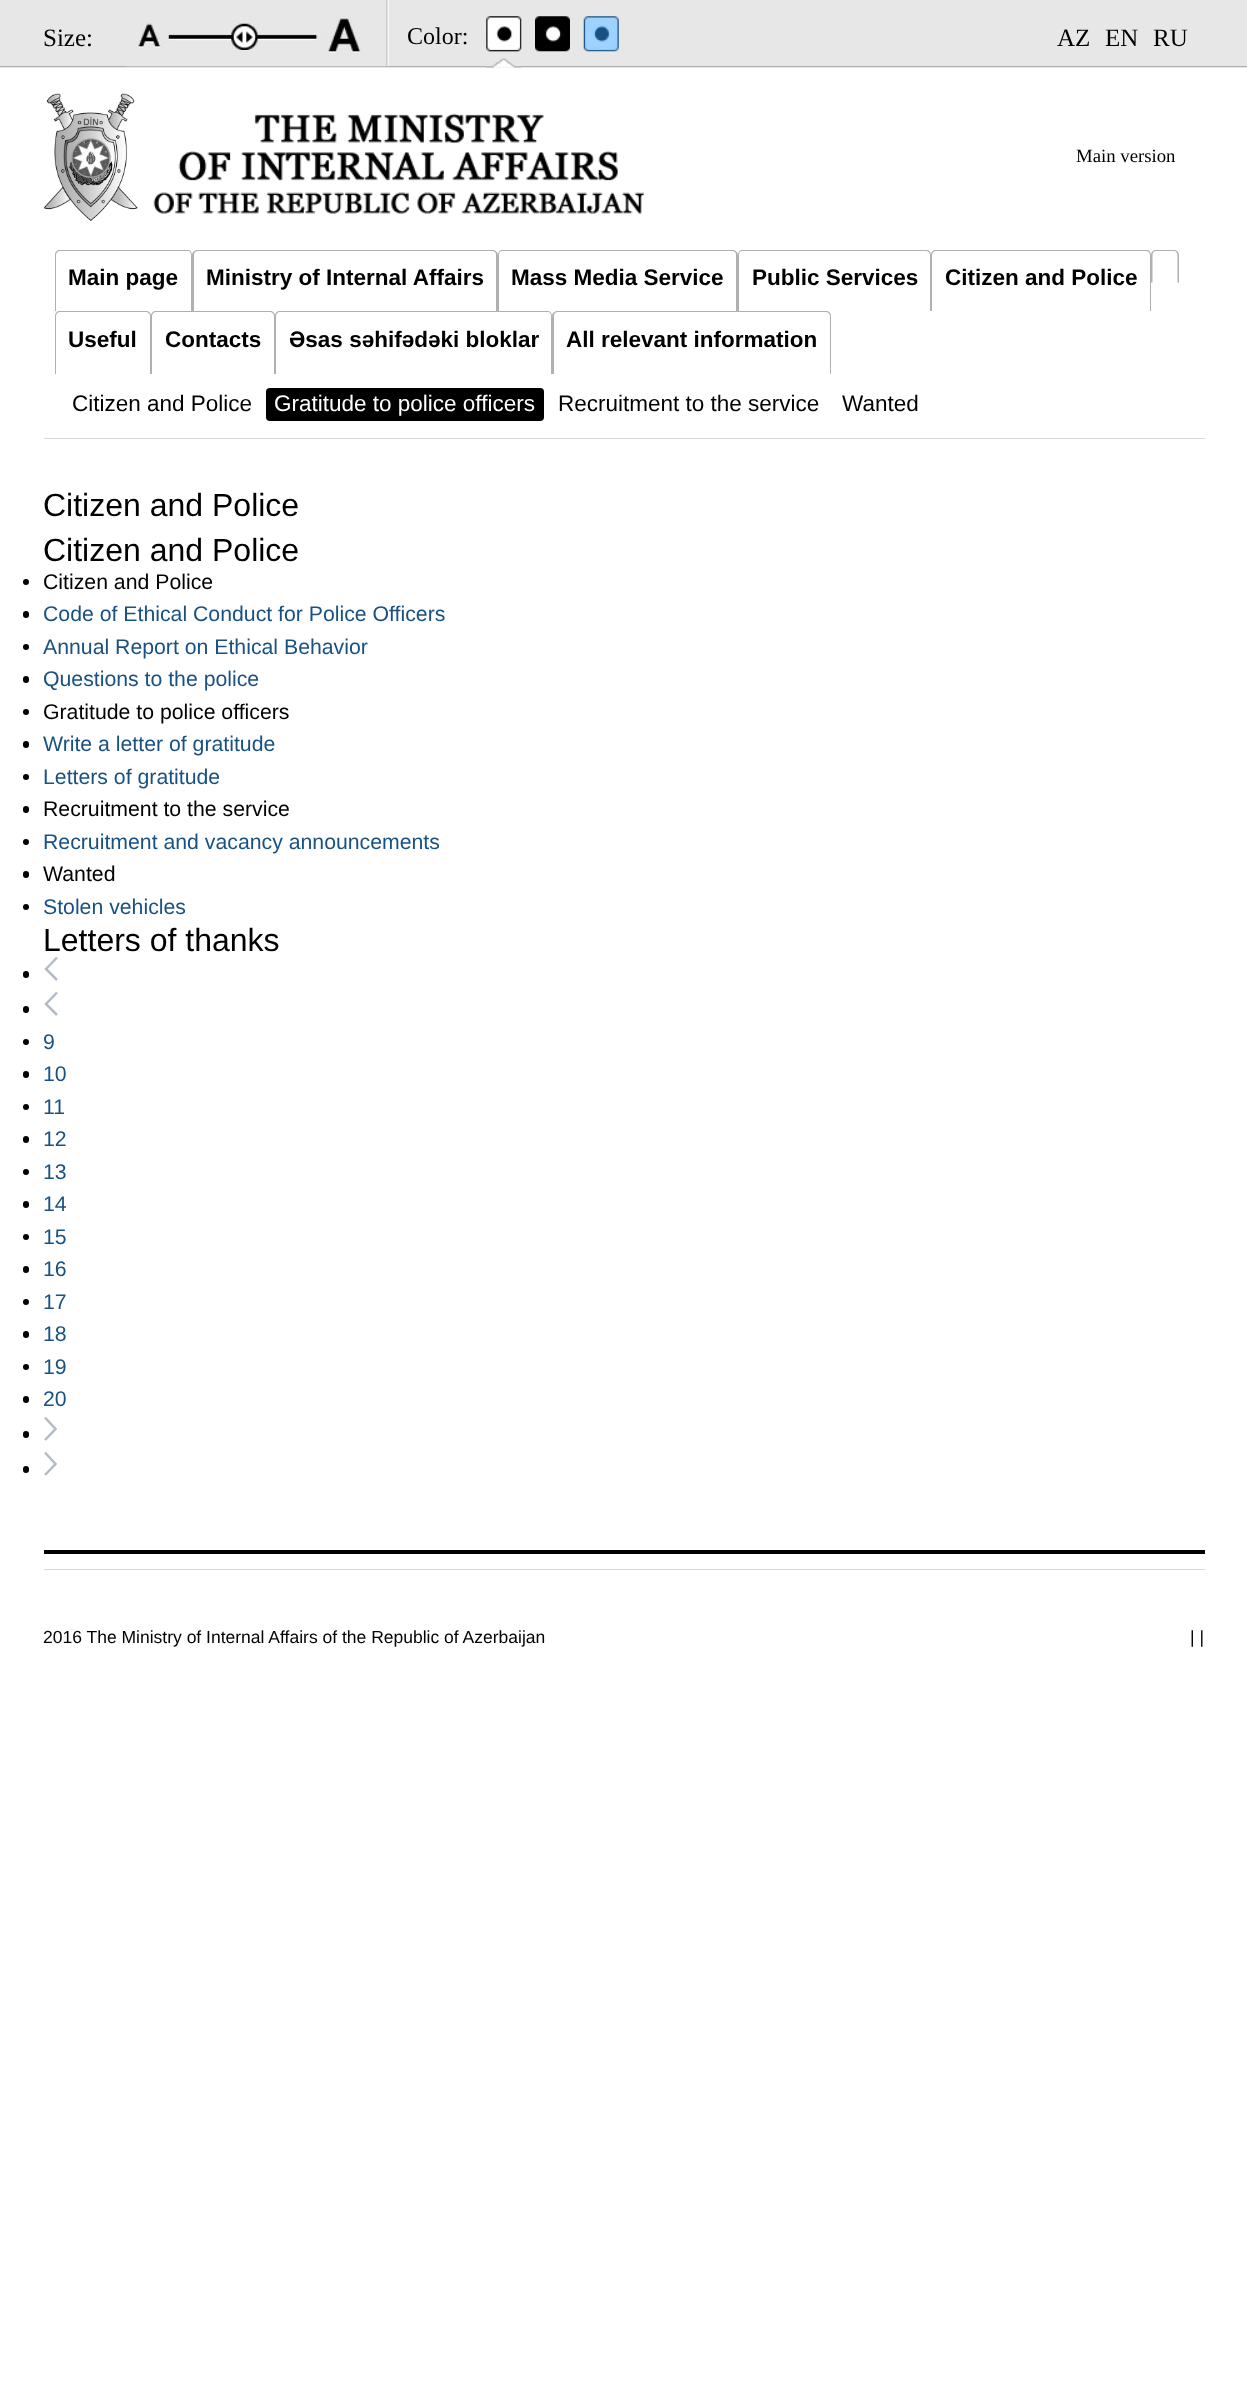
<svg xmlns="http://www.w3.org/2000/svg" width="1247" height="2408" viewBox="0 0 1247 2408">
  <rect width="100%" height="100%" fill="#ffffff"/>
  <rect x="0" y="0" width="1247" height="68" fill="#e7e7e7"/>
  <rect x="0" y="66" width="1247" height="1" fill="#aeaeae"/>
  <image x="126" y="0" width="263" height="67" href="img1.png"/>
  <text x="43" y="46" font-family="Liberation Serif" font-size="25" fill="#000000">Size:</text>
  <image x="231" y="23" width="27" height="27" href="img2.png"/>
  <text x="407" y="44" font-family="Liberation Serif" font-size="24" fill="#000000">Color:</text>
  <image x="486" y="16" width="36" height="52" href="img3.png"/>
  <image x="535" y="16" width="35" height="36" href="img4.png"/>
  <image x="583" y="16" width="36" height="36" href="img5.png"/>
  <text x="1057" y="46" font-family="Liberation Serif" font-size="25" fill="#000000">AZ</text>
  <text x="1105" y="46" font-family="Liberation Serif" font-size="25" fill="#000000">EN</text>
  <text x="1153" y="46" font-family="Liberation Serif" font-size="25" fill="#000000">RU</text>
  <image x="43" y="93" width="95" height="129" href="img6.png"/>
  <image x="153" y="113" width="491" height="101" href="img7.png"/>
  <text x="1076" y="162" font-family="Liberation Serif" font-size="18.75" fill="#000000">Main version</text>
  <rect x="44" y="438" width="1161" height="1" fill="#d8d8d8"/>
  <path d="M60 250H188C190 250 192 252 192 255V311H55V255C55 252 57 250 60 250ZM60 251H188C190 251 191 253 191 255V311H56V255C56 253 58 251 60 251Z" fill="#b0b0b0" fill-rule="evenodd"/>
  <text x="68" y="285" font-family="Liberation Sans" font-size="22.5" font-weight="bold" fill="#000000">Main page</text>
  <path d="M198 250H492C495 250 498 252 498 255V311H192V255C192 252 195 250 198 250ZM198 251H492C495 251 496 253 496 255V311H194V255C194 253 195 251 198 251Z" fill="#b0b0b0" fill-rule="evenodd"/>
  <text x="206" y="285" font-family="Liberation Sans" font-size="22.5" font-weight="bold" fill="#000000">Ministry of Internal Affairs</text>
  <path d="M502 250H732C735 250 738 252 738 255V311H498V255C498 252 500 250 502 250ZM502 251H732C735 251 736 253 736 255V311H499V255C499 253 500 251 502 251Z" fill="#b0b0b0" fill-rule="evenodd"/>
  <text x="511" y="285" font-family="Liberation Sans" font-size="22.5" font-weight="bold" fill="#000000">Mass Media Service</text>
  <path d="M742 250H926C929 250 931 252 931 255V311H738V255C738 252 740 250 742 250ZM742 251H926C928 251 930 253 930 255V311H739V255C739 253 740 251 742 251Z" fill="#b0b0b0" fill-rule="evenodd"/>
  <text x="752" y="285" font-family="Liberation Sans" font-size="22.5" font-weight="bold" fill="#000000">Public Services</text>
  <path d="M936 250H1146C1149 250 1151 252 1151 255V311H931V255C931 252 933 250 936 250ZM936 251H1146C1148 251 1150 253 1150 255V311H932V255C932 253 934 251 936 251Z" fill="#b0b0b0" fill-rule="evenodd"/>
  <text x="945" y="285" font-family="Liberation Sans" font-size="22.5" font-weight="bold" fill="#000000">Citizen and Police</text>
  <path d="M1156 250H1174C1176.5 250 1179 252 1179 255V282.5H1151V255C1151 252 1153.5 250 1156 250ZM1156 251H1174C1176 251 1177.5 253 1177.5 255V282.5H1152.5V255C1152.5 253 1154 251 1156 251Z" fill="#b0b0b0" fill-rule="evenodd"/>
  <path d="M60 311H146C149 311 151 313 151 316V374H55V316C55 313 57 311 60 311ZM60 312H146C148 312 150 314 150 316V374H56V316C56 314 58 312 60 312Z" fill="#b0b0b0" fill-rule="evenodd"/>
  <text x="68" y="347" font-family="Liberation Sans" font-size="22.5" font-weight="bold" fill="#000000">Useful</text>
  <path d="M156 311H270C273 311 275 313 275 316V374H151V316C151 313 153 311 156 311ZM156 312H270C272 312 274 314 274 316V374H152V316C152 314 154 312 156 312Z" fill="#b0b0b0" fill-rule="evenodd"/>
  <text x="165" y="347" font-family="Liberation Sans" font-size="22.5" font-weight="bold" fill="#000000">Contacts</text>
  <path d="M280 311H548C550 311 552 313 552 316V374H275V316C275 313 277 311 280 311ZM280 312H548C550 312 551 314 551 316V374H276V316C276 314 278 312 280 312Z" fill="#b0b0b0" fill-rule="evenodd"/>
  <text x="289" y="347" font-family="Liberation Sans" font-size="22.5" font-weight="bold" fill="#000000">Əsas səhifədəki bloklar</text>
  <path d="M558 311H826C829 311 831 313 831 316V374H552V316C552 313 555 311 558 311ZM558 312H826C828 312 830 314 830 316V374H554V316C554 314 555 312 558 312Z" fill="#b0b0b0" fill-rule="evenodd"/>
  <text x="566" y="347" font-family="Liberation Sans" font-size="22.5" font-weight="bold" fill="#000000">All relevant information</text>
  <text x="72" y="411" font-family="Liberation Sans" font-size="22.5" fill="#000000">Citizen and Police</text>
  <rect x="266" y="388" width="278" height="33" rx="4" fill="#000000"/>
  <text x="274" y="411" font-family="Liberation Sans" font-size="22.5" fill="#ffffff">Gratitude to police officers</text>
  <text x="558" y="411" font-family="Liberation Sans" font-size="22.5" fill="#000000">Recruitment to the service</text>
  <text x="842" y="411" font-family="Liberation Sans" font-size="22.5" fill="#000000">Wanted</text>
  <text x="43" y="516" font-family="Liberation Sans" font-size="32" fill="#000000">Citizen and Police</text>
  <text x="43" y="561" font-family="Liberation Sans" font-size="32" fill="#000000">Citizen and Police</text>
  <circle cx="26" cy="582" r="3" fill="#000000"/>
  <text x="43" y="589" font-family="Liberation Sans" font-size="21.25" fill="#000000">Citizen and Police</text>
  <rect x="23" y="611" width="6" height="7" rx="3" fill="#000000"/>
  <text x="43" y="621" font-family="Liberation Sans" font-size="21.25" fill="#195183">Code of Ethical Conduct for Police Officers</text>
  <circle cx="26" cy="647" r="3" fill="#000000"/>
  <text x="43" y="654" font-family="Liberation Sans" font-size="21.25" fill="#195183">Annual Report on Ethical Behavior</text>
  <rect x="23" y="676" width="6" height="7" rx="3" fill="#000000"/>
  <text x="43" y="686" font-family="Liberation Sans" font-size="21.25" fill="#195183">Questions to the police</text>
  <circle cx="26" cy="712" r="3" fill="#000000"/>
  <text x="43" y="719" font-family="Liberation Sans" font-size="21.25" fill="#000000">Gratitude to police officers</text>
  <rect x="23" y="741" width="6" height="7" rx="3" fill="#000000"/>
  <text x="43" y="751" font-family="Liberation Sans" font-size="21.25" fill="#195183">Write a letter of gratitude</text>
  <circle cx="26" cy="777" r="3" fill="#000000"/>
  <text x="43" y="784" font-family="Liberation Sans" font-size="21.25" fill="#195183">Letters of gratitude</text>
  <rect x="23" y="806" width="6" height="7" rx="3" fill="#000000"/>
  <text x="43" y="816" font-family="Liberation Sans" font-size="21.25" fill="#000000">Recruitment to the service</text>
  <circle cx="26" cy="842" r="3" fill="#000000"/>
  <text x="43" y="849" font-family="Liberation Sans" font-size="21.25" fill="#195183">Recruitment and vacancy announcements</text>
  <rect x="23" y="871" width="6" height="7" rx="3" fill="#000000"/>
  <text x="43" y="881" font-family="Liberation Sans" font-size="21.25" fill="#000000">Wanted</text>
  <circle cx="26" cy="907" r="3" fill="#000000"/>
  <text x="43" y="914" font-family="Liberation Sans" font-size="21.25" fill="#195183">Stolen vehicles</text>
  <text x="43" y="951" font-family="Liberation Sans" font-size="32" fill="#000000">Letters of thanks</text>
  <rect x="23" y="971" width="6" height="7" rx="3" fill="#000000"/>
  <path d="M57 980L46 969L57 957.5" fill="none" stroke="#b3bbc9" stroke-width="2.5"/>
  <rect x="23" y="1006" width="6" height="7" rx="3" fill="#000000"/>
  <path d="M57 1015L46 1004L57 992.5" fill="none" stroke="#b3bbc9" stroke-width="2.5"/>
  <circle cx="26" cy="1042" r="3" fill="#000000"/>
  <text x="43" y="1049" font-family="Liberation Sans" font-size="21.25" fill="#195183">9</text>
  <rect x="23" y="1071" width="6" height="7" rx="3" fill="#000000"/>
  <text x="43" y="1081" font-family="Liberation Sans" font-size="21.25" fill="#195183">10</text>
  <circle cx="26" cy="1107" r="3" fill="#000000"/>
  <text x="43" y="1114" font-family="Liberation Sans" font-size="21.25" fill="#195183">11</text>
  <rect x="23" y="1136" width="6" height="7" rx="3" fill="#000000"/>
  <text x="43" y="1146" font-family="Liberation Sans" font-size="21.25" fill="#195183">12</text>
  <circle cx="26" cy="1172" r="3" fill="#000000"/>
  <text x="43" y="1179" font-family="Liberation Sans" font-size="21.25" fill="#195183">13</text>
  <rect x="23" y="1201" width="6" height="7" rx="3" fill="#000000"/>
  <text x="43" y="1211" font-family="Liberation Sans" font-size="21.25" fill="#195183">14</text>
  <circle cx="26" cy="1237" r="3" fill="#000000"/>
  <text x="43" y="1244" font-family="Liberation Sans" font-size="21.25" fill="#195183">15</text>
  <rect x="23" y="1266" width="6" height="7" rx="3" fill="#000000"/>
  <text x="43" y="1276" font-family="Liberation Sans" font-size="21.25" fill="#195183">16</text>
  <circle cx="26" cy="1302" r="3" fill="#000000"/>
  <text x="43" y="1309" font-family="Liberation Sans" font-size="21.25" fill="#195183">17</text>
  <rect x="23" y="1331" width="6" height="7" rx="3" fill="#000000"/>
  <text x="43" y="1341" font-family="Liberation Sans" font-size="21.25" fill="#195183">18</text>
  <circle cx="26" cy="1367" r="3" fill="#000000"/>
  <text x="43" y="1374" font-family="Liberation Sans" font-size="21.25" fill="#195183">19</text>
  <rect x="23" y="1396" width="6" height="7" rx="3" fill="#000000"/>
  <text x="43" y="1406" font-family="Liberation Sans" font-size="21.25" fill="#195183">20</text>
  <rect x="23" y="1431" width="6" height="7" rx="3" fill="#000000"/>
  <path d="M45 1417.5L55.5 1429L45 1440" fill="none" stroke="#b3bbc9" stroke-width="2.5"/>
  <rect x="23" y="1466" width="6" height="7" rx="3" fill="#000000"/>
  <path d="M45 1452.5L55.5 1464L45 1475" fill="none" stroke="#b3bbc9" stroke-width="2.5"/>
  <rect x="44" y="1550" width="1161" height="4" fill="#000000"/>
  <rect x="44" y="1569" width="1161" height="1" fill="#d8d8d8"/>
  <text x="43" y="1643" font-family="Liberation Sans" font-size="17.5" fill="#000000">2016 The Ministry of Internal Affairs of the Republic of Azerbaijan</text>
  <text x="1190" y="1643" font-family="Liberation Sans" font-size="17.5" fill="#000000">| |</text>
</svg>
